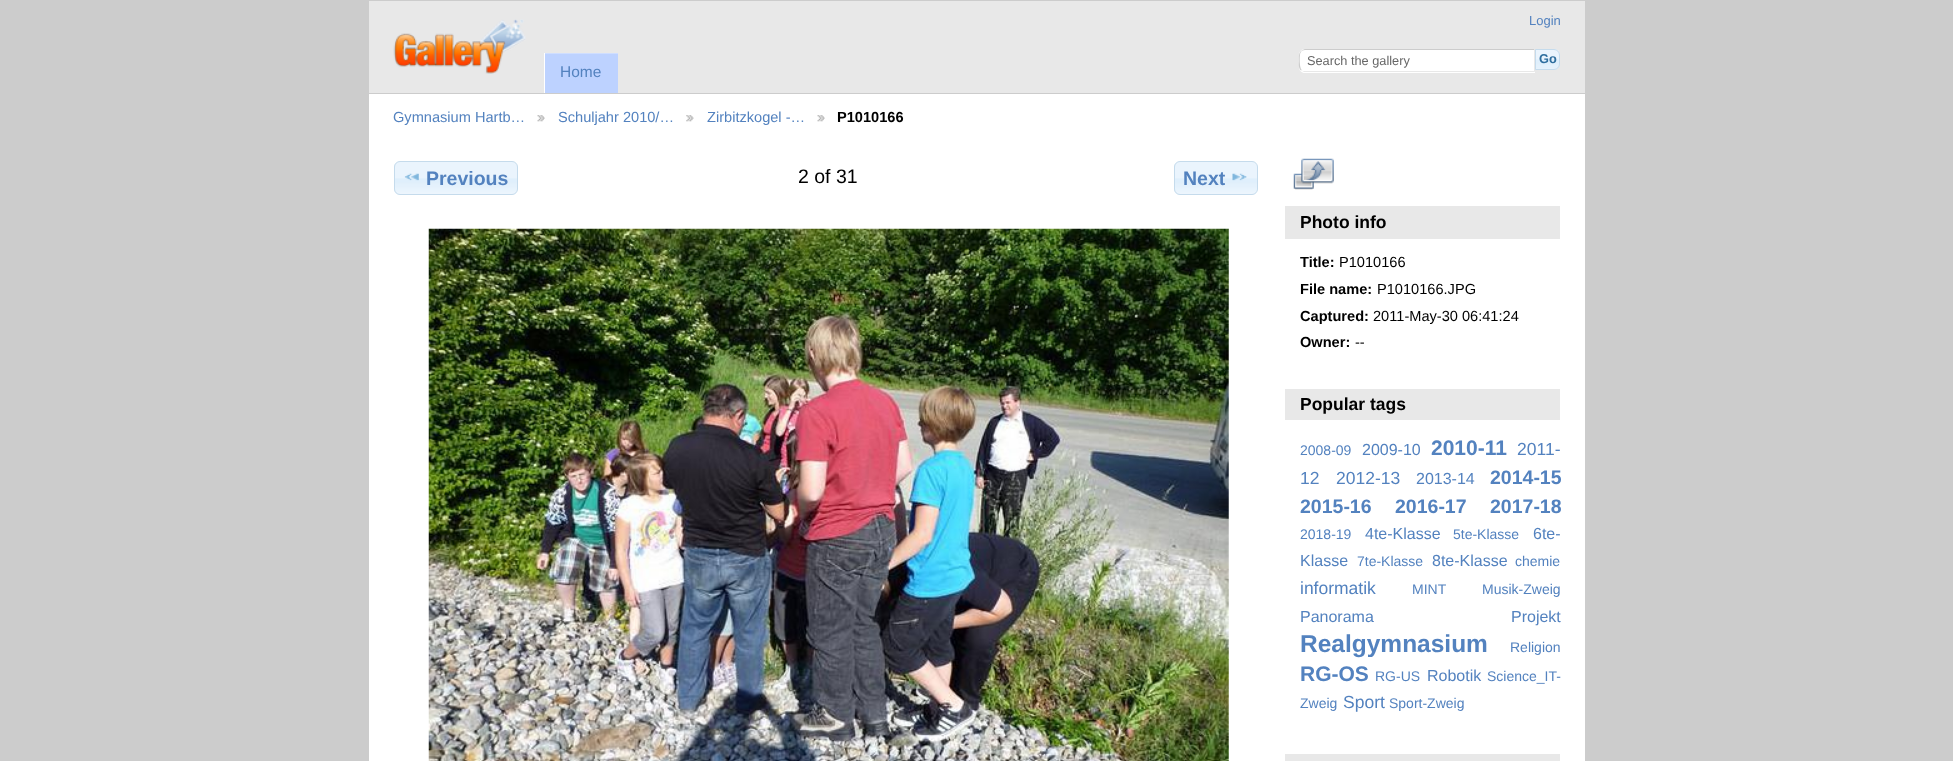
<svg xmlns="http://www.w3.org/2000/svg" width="1953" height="761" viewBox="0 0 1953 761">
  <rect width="100%" height="100%" fill="#cccccc"/>
  <rect x="369" y="94" width="1216" height="667" fill="#ffffff"/>
  <rect x="369" y="1" width="1216" height="92" fill="#e8e8e8"/>
  <image x="393" y="19" width="133" height="55" href="img1.png"/>
  <text x="1529" y="25" font-family="Liberation Sans" font-size="13" fill="#5382bf">Login</text>
  <path d="M1305 49H1535V73H1305C1301.5 73 1299 70.5 1299 67V55C1299 51.5 1301.5 49 1305 49Z" fill="#ffffff"/>
  <path d="M1305 49C1304 49 1302 50 1301 51C1302 51 1303 50 1305 50H1534L1535 49Z" fill="#cccccc"/>
  <path d="M1535 72V49L1534 50V71H1533.5L1534.5 72Z" fill="#e8e8e8"/>
  <path d="M1534 72H1304L1301 70H1302C1302 71 1303 71 1305 71H1534Z" fill="#e8e8e8"/>
  <path d="M1301 51C1298.5 53.5 1299 57 1299 60.5C1299 63.5 1298 68 1301 70.5L1301.5 69.5C1299.5 67.5 1299.5 57.5 1300 55C1300 53.5 1300.5 52.5 1301.5 51.5Z" fill="#cccccc"/>
  <text x="1307" y="65" font-family="Liberation Sans" font-size="12.75" fill="#666666">Search the gallery</text>
  <image x="1536" y="49" width="24" height="21" href="img2.png"/>
  <path d="M1535.5 49.5H1554C1557 49.5 1559.5 52 1559.5 55V64C1559.5 67 1557 69.5 1554 69.5H1535.5Z" fill="none" stroke="#c5dbec"/>
  <text x="1539" y="63" font-family="Liberation Sans" font-size="12.75" font-weight="bold" fill="#2e6e9e">Go</text>
  <rect x="545" y="54" width="73" height="39" fill="#bdd2ff"/>
  <rect x="544" y="53" width="74" height="1" fill="#cfdeff"/>
  <rect x="544" y="53" width="1" height="40" fill="#ffffff"/>
  <text x="560" y="77" font-family="Liberation Sans" font-size="15.5" fill="#5382bf">Home</text>
  <text x="393" y="122" font-family="Liberation Sans" font-size="14.6" fill="#5382bf">Gymnasium Hartb…</text>
  <image x="537" y="115" width="8" height="7" href="img3.png"/>
  <text x="558" y="122" font-family="Liberation Sans" font-size="14.6" fill="#5382bf">Schuljahr 2010/…</text>
  <image x="686" y="115" width="8" height="7" href="img4.png"/>
  <text x="707" y="122" font-family="Liberation Sans" font-size="14.6" fill="#5382bf">Zirbitzkogel -…</text>
  <image x="817" y="115" width="8" height="7" href="img3.png"/>
  <text x="837" y="122" font-family="Liberation Sans" font-size="14.6" font-weight="bold" fill="#000000">P1010166</text>
  <image x="394" y="161" width="123" height="34" href="img5.png"/>
  <rect x="394.5" y="161.5" width="123" height="33" rx="5.5" fill="none" stroke="#c5dbec"/>
  <image x="404" y="173" width="15" height="8" href="img6.png"/>
  <text x="426" y="185" font-family="Liberation Sans" font-size="19.5" font-weight="bold" fill="#5382bf">Previous</text>
  <text x="798" y="183" font-family="Liberation Sans" font-size="19.5" fill="#000000">2 of 31</text>
  <image x="1174" y="161" width="83" height="34" href="img7.png"/>
  <rect x="1174.5" y="161.5" width="83" height="33" rx="5.5" fill="none" stroke="#c5dbec"/>
  <text x="1183" y="185" font-family="Liberation Sans" font-size="19.5" font-weight="bold" fill="#5382bf">Next</text>
  <image x="1232" y="173" width="15" height="8" href="img8.png"/>
  <image x="428" y="228" width="801" height="533" href="img9.png"/>
  <image x="1293" y="158" width="41" height="32" href="img10.png"/>
  <rect x="1285" y="206" width="275" height="33" fill="#e8e8e8"/>
  <text x="1300" y="228" font-family="Liberation Sans" font-size="17.5" font-weight="bold" fill="#000000">Photo info</text>
  <text x="1300" y="267" font-family="Liberation Sans" font-size="14.6" font-weight="bold" fill="#000000">Title:</text>
  <text x="1339" y="267" font-family="Liberation Sans" font-size="14.6" fill="#000000">P1010166</text>
  <text x="1300" y="294" font-family="Liberation Sans" font-size="14.6" font-weight="bold" fill="#000000">File name:</text>
  <text x="1377" y="294" font-family="Liberation Sans" font-size="14.6" fill="#000000">P1010166.JPG</text>
  <text x="1300" y="321" font-family="Liberation Sans" font-size="14.6" font-weight="bold" fill="#000000">Captured:</text>
  <text x="1373" y="321" font-family="Liberation Sans" font-size="14.6" fill="#000000">2011-May-30 06:41:24</text>
  <text x="1300" y="347" font-family="Liberation Sans" font-size="14.6" font-weight="bold" fill="#000000">Owner:</text>
  <text x="1355" y="347" font-family="Liberation Sans" font-size="14.6" fill="#000000">--</text>
  <rect x="1285" y="389" width="275" height="31" fill="#e8e8e8"/>
  <text x="1300" y="410" font-family="Liberation Sans" font-size="17.5" font-weight="bold" fill="#000000">Popular tags</text>
  <text x="1300" y="455" font-family="Liberation Sans" font-size="14" fill="#5382bf">2008-09</text>
  <text x="1362" y="455" font-family="Liberation Sans" font-size="16" fill="#5382bf">2009-10</text>
  <text x="1431" y="455" font-family="Liberation Sans" font-size="21" font-weight="bold" fill="#5382bf">2010-11</text>
  <text x="1517" y="455" font-family="Liberation Sans" font-size="17.5" fill="#5382bf">2011-</text>
  <text x="1300" y="484" font-family="Liberation Sans" font-size="17.5" fill="#5382bf">12</text>
  <text x="1336" y="484" font-family="Liberation Sans" font-size="17.5" fill="#5382bf">2012-13</text>
  <text x="1416" y="484" font-family="Liberation Sans" font-size="16" fill="#5382bf">2013-14</text>
  <text x="1490" y="484" font-family="Liberation Sans" font-size="19.5" font-weight="bold" fill="#5382bf">2014-15</text>
  <text x="1300" y="513" font-family="Liberation Sans" font-size="19.5" font-weight="bold" fill="#5382bf">2015-16</text>
  <text x="1395" y="513" font-family="Liberation Sans" font-size="19.5" font-weight="bold" fill="#5382bf">2016-17</text>
  <text x="1490" y="513" font-family="Liberation Sans" font-size="19.5" font-weight="bold" fill="#5382bf">2017-18</text>
  <text x="1300" y="539" font-family="Liberation Sans" font-size="14" fill="#5382bf">2018-19</text>
  <text x="1365" y="539" font-family="Liberation Sans" font-size="16" fill="#5382bf">4te-Klasse</text>
  <text x="1453" y="539" font-family="Liberation Sans" font-size="14" fill="#5382bf">5te-Klasse</text>
  <text x="1533" y="539" font-family="Liberation Sans" font-size="16" fill="#5382bf">6te-</text>
  <text x="1300" y="566" font-family="Liberation Sans" font-size="16" fill="#5382bf">Klasse</text>
  <text x="1357" y="566" font-family="Liberation Sans" font-size="14" fill="#5382bf">7te-Klasse</text>
  <text x="1432" y="566" font-family="Liberation Sans" font-size="16" fill="#5382bf">8te-Klasse</text>
  <text x="1515" y="566" font-family="Liberation Sans" font-size="14" fill="#5382bf">chemie</text>
  <text x="1300" y="594" font-family="Liberation Sans" font-size="17.5" fill="#5382bf">informatik</text>
  <text x="1412" y="594" font-family="Liberation Sans" font-size="14" fill="#5382bf">MINT</text>
  <text x="1482" y="594" font-family="Liberation Sans" font-size="14" fill="#5382bf">Musik-Zweig</text>
  <text x="1300" y="622" font-family="Liberation Sans" font-size="16" fill="#5382bf">Panorama</text>
  <text x="1511" y="622" font-family="Liberation Sans" font-size="16" fill="#5382bf">Projekt</text>
  <text x="1300" y="652" font-family="Liberation Sans" font-size="24.5" font-weight="bold" fill="#5382bf">Realgymnasium</text>
  <text x="1510" y="652" font-family="Liberation Sans" font-size="14" fill="#5382bf">Religion</text>
  <text x="1300" y="681" font-family="Liberation Sans" font-size="21" font-weight="bold" fill="#5382bf">RG-OS</text>
  <text x="1375" y="681" font-family="Liberation Sans" font-size="14" fill="#5382bf">RG-US</text>
  <text x="1427" y="681" font-family="Liberation Sans" font-size="16" fill="#5382bf">Robotik</text>
  <text x="1487" y="681" font-family="Liberation Sans" font-size="14" fill="#5382bf">Science_IT-</text>
  <text x="1300" y="708" font-family="Liberation Sans" font-size="14" fill="#5382bf">Zweig</text>
  <text x="1343" y="708" font-family="Liberation Sans" font-size="17.5" fill="#5382bf">Sport</text>
  <text x="1389" y="708" font-family="Liberation Sans" font-size="14" fill="#5382bf">Sport-Zweig</text>
  <rect x="1285" y="754" width="275" height="7" fill="#e8e8e8"/>
</svg>
